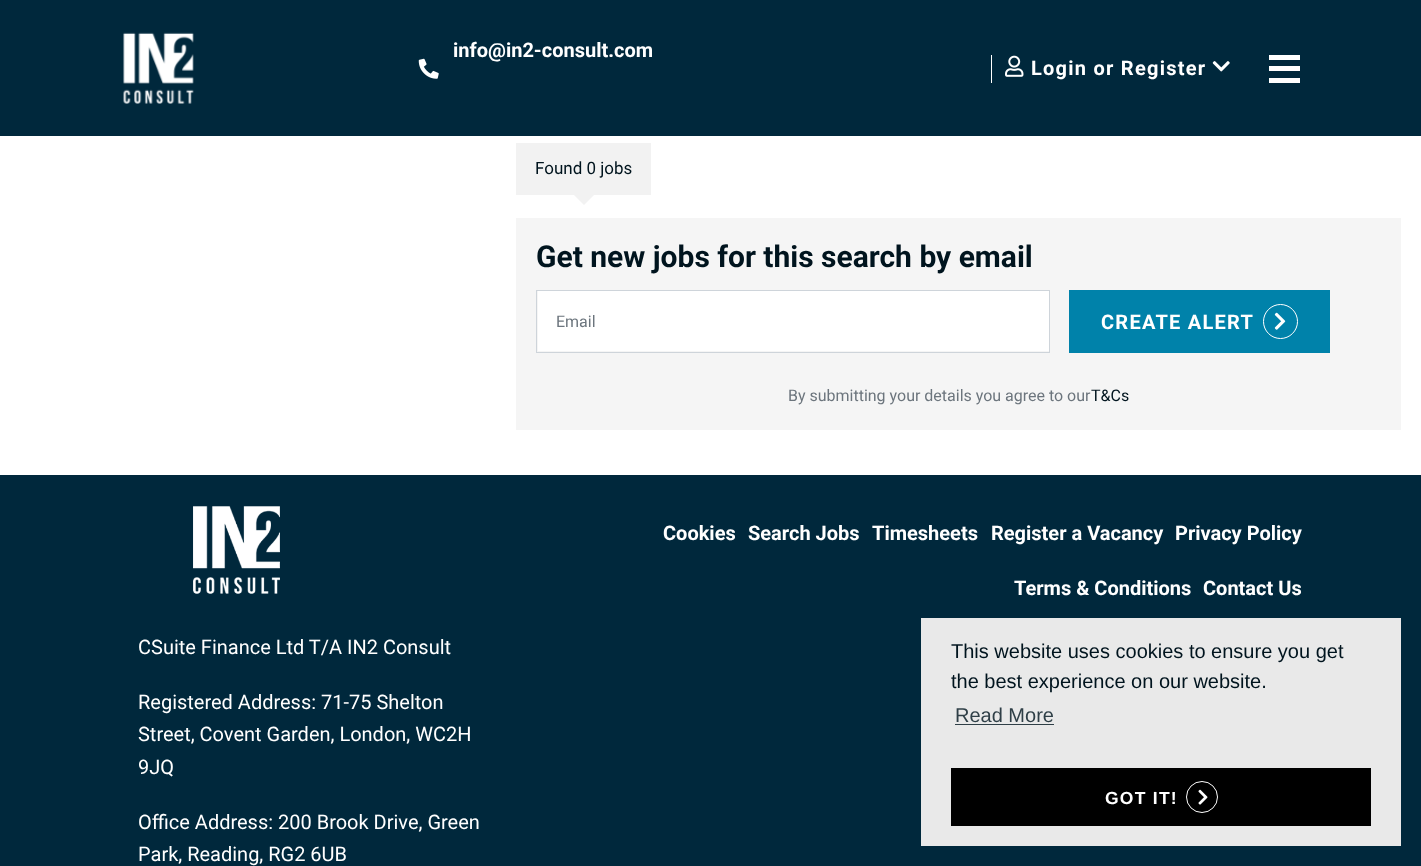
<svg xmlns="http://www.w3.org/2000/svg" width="1421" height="866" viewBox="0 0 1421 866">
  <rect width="100%" height="100%" fill="#ffffff"/>
  <rect x="0" y="0" width="1421" height="136" fill="#00283c"/>
  <image x="123" y="32" width="71" height="72" href="img1.png"/>
  <text x="453" y="57" font-family="Roboto" font-size="20" font-weight="bold" fill="#ffffff">info@in2-consult.com</text>
  <image x="418" y="58" width="21" height="21" href="img2.png"/>
  <rect x="991" y="55" width="1" height="28" fill="#ffffff"/>
  <image x="1005" y="55" width="19" height="22" href="img3.png"/>
  <text x="1031" y="75" font-family="Roboto" font-size="20" font-weight="bold" letter-spacing="1.25" fill="#ffffff">Login or Register</text>
  <image x="1212" y="61" width="18" height="11" href="img4.png"/>
  <rect x="1269" y="66" width="31" height="5" fill="#ffffff"/>
  <rect x="1269" y="55" width="31" height="5" fill="#ffffff"/>
  <rect x="1269" y="78" width="31" height="5" fill="#ffffff"/>
  <rect x="516" y="143" width="135" height="52" fill="#f2f2f2"/>
  <text x="535" y="174" font-family="Roboto" font-size="17" fill="#00141e">Found 0 jobs</text>
  <path d="M574 195H594L584 205Z" fill="#f2f2f2"/>
  <rect x="516" y="218" width="885" height="212" fill="#f5f5f5"/>
  <text x="536" y="267" font-family="Roboto" font-size="30" font-weight="bold" fill="#00141e">Get new jobs for this search by email</text>
  <rect x="538" y="291" width="511" height="60" fill="#ffffff"/>
  <rect x="536.5" y="290.5" width="513" height="62" fill="none" stroke="#ced4da"/>
  <text x="556" y="327" font-family="Roboto" font-size="16" fill="#6c757d">Email</text>
  <rect x="1069" y="290" width="261" height="63" fill="#0082aa"/>
  <text x="1101" y="329" font-family="Roboto" font-size="20" font-weight="bold" letter-spacing="1.25" fill="#ffffff">CREATE ALERT</text>
  <circle cx="1280.5" cy="321.5" r="17" fill="none" stroke="#ffffff"/>
  <image x="1274" y="312" width="12" height="18" href="img5.png"/>
  <text x="788" y="401" font-family="Roboto" font-size="16" fill="#6c757d">By submitting your details you agree to our</text>
  <text x="1091" y="401" font-family="Roboto" font-size="16" fill="#00141e">T&amp;Cs</text>
  <rect x="0" y="475" width="1421" height="391" fill="#00283c"/>
  <text x="663" y="540" font-family="Roboto" font-size="20" font-weight="bold" fill="#ffffff">Cookies</text>
  <text x="748" y="540" font-family="Roboto" font-size="20" font-weight="bold" fill="#ffffff">Search Jobs</text>
  <text x="872" y="540" font-family="Roboto" font-size="20" font-weight="bold" fill="#ffffff">Timesheets</text>
  <text x="991" y="540" font-family="Roboto" font-size="20" font-weight="bold" fill="#ffffff">Register a Vacancy</text>
  <text x="1175" y="540" font-family="Roboto" font-size="20" font-weight="bold" fill="#ffffff">Privacy Policy</text>
  <text x="1014" y="595" font-family="Roboto" font-size="20" font-weight="bold" fill="#ffffff">Terms &amp; Conditions</text>
  <text x="1203" y="595" font-family="Roboto" font-size="20" font-weight="bold" fill="#ffffff">Contact Us</text>
  <image x="193" y="506" width="87" height="88" href="img6.png"/>
  <text x="138" y="654" font-family="Roboto" font-size="20" fill="#ffffff">CSuite Finance Ltd T/A IN2 Consult</text>
  <text x="138" y="709" font-family="Roboto" font-size="20" fill="#ffffff">Registered Address: 71-75 Shelton</text>
  <text x="138" y="741" font-family="Roboto" font-size="20" fill="#ffffff">Street, Covent Garden, London, WC2H</text>
  <text x="138" y="774" font-family="Roboto" font-size="20" fill="#ffffff">9JQ</text>
  <text x="138" y="829" font-family="Roboto" font-size="20" fill="#ffffff">Office Address: 200 Brook Drive, Green</text>
  <text x="138" y="861" font-family="Roboto" font-size="20" fill="#ffffff">Park, Reading, RG2 6UB</text>
  <rect x="921" y="618" width="480" height="228" fill="#e9e9e9"/>
  <text x="951" y="658" font-family="Liberation Sans" font-size="20" fill="#00141e">This website uses cookies to ensure you get</text>
  <text x="951" y="688" font-family="Liberation Sans" font-size="20" fill="#00141e">the best experience on our website.</text>
  <text x="955" y="722" font-family="Liberation Sans" font-size="20" fill="#2f3f47">Read More</text>
  <rect x="955" y="724" width="99" height="1" fill="#2f3f47"/>
  <rect x="951" y="768" width="420" height="58" fill="#000000"/>
  <text x="1105" y="804" font-family="Liberation Sans" font-size="17.5" font-weight="bold" letter-spacing="1.25" fill="#ffffff">GOT IT!</text>
  <circle cx="1202" cy="797" r="15.5" fill="none" stroke="#ffffff"/>
  <image x="1198" y="789" width="10" height="16" href="img7.png"/>
</svg>
